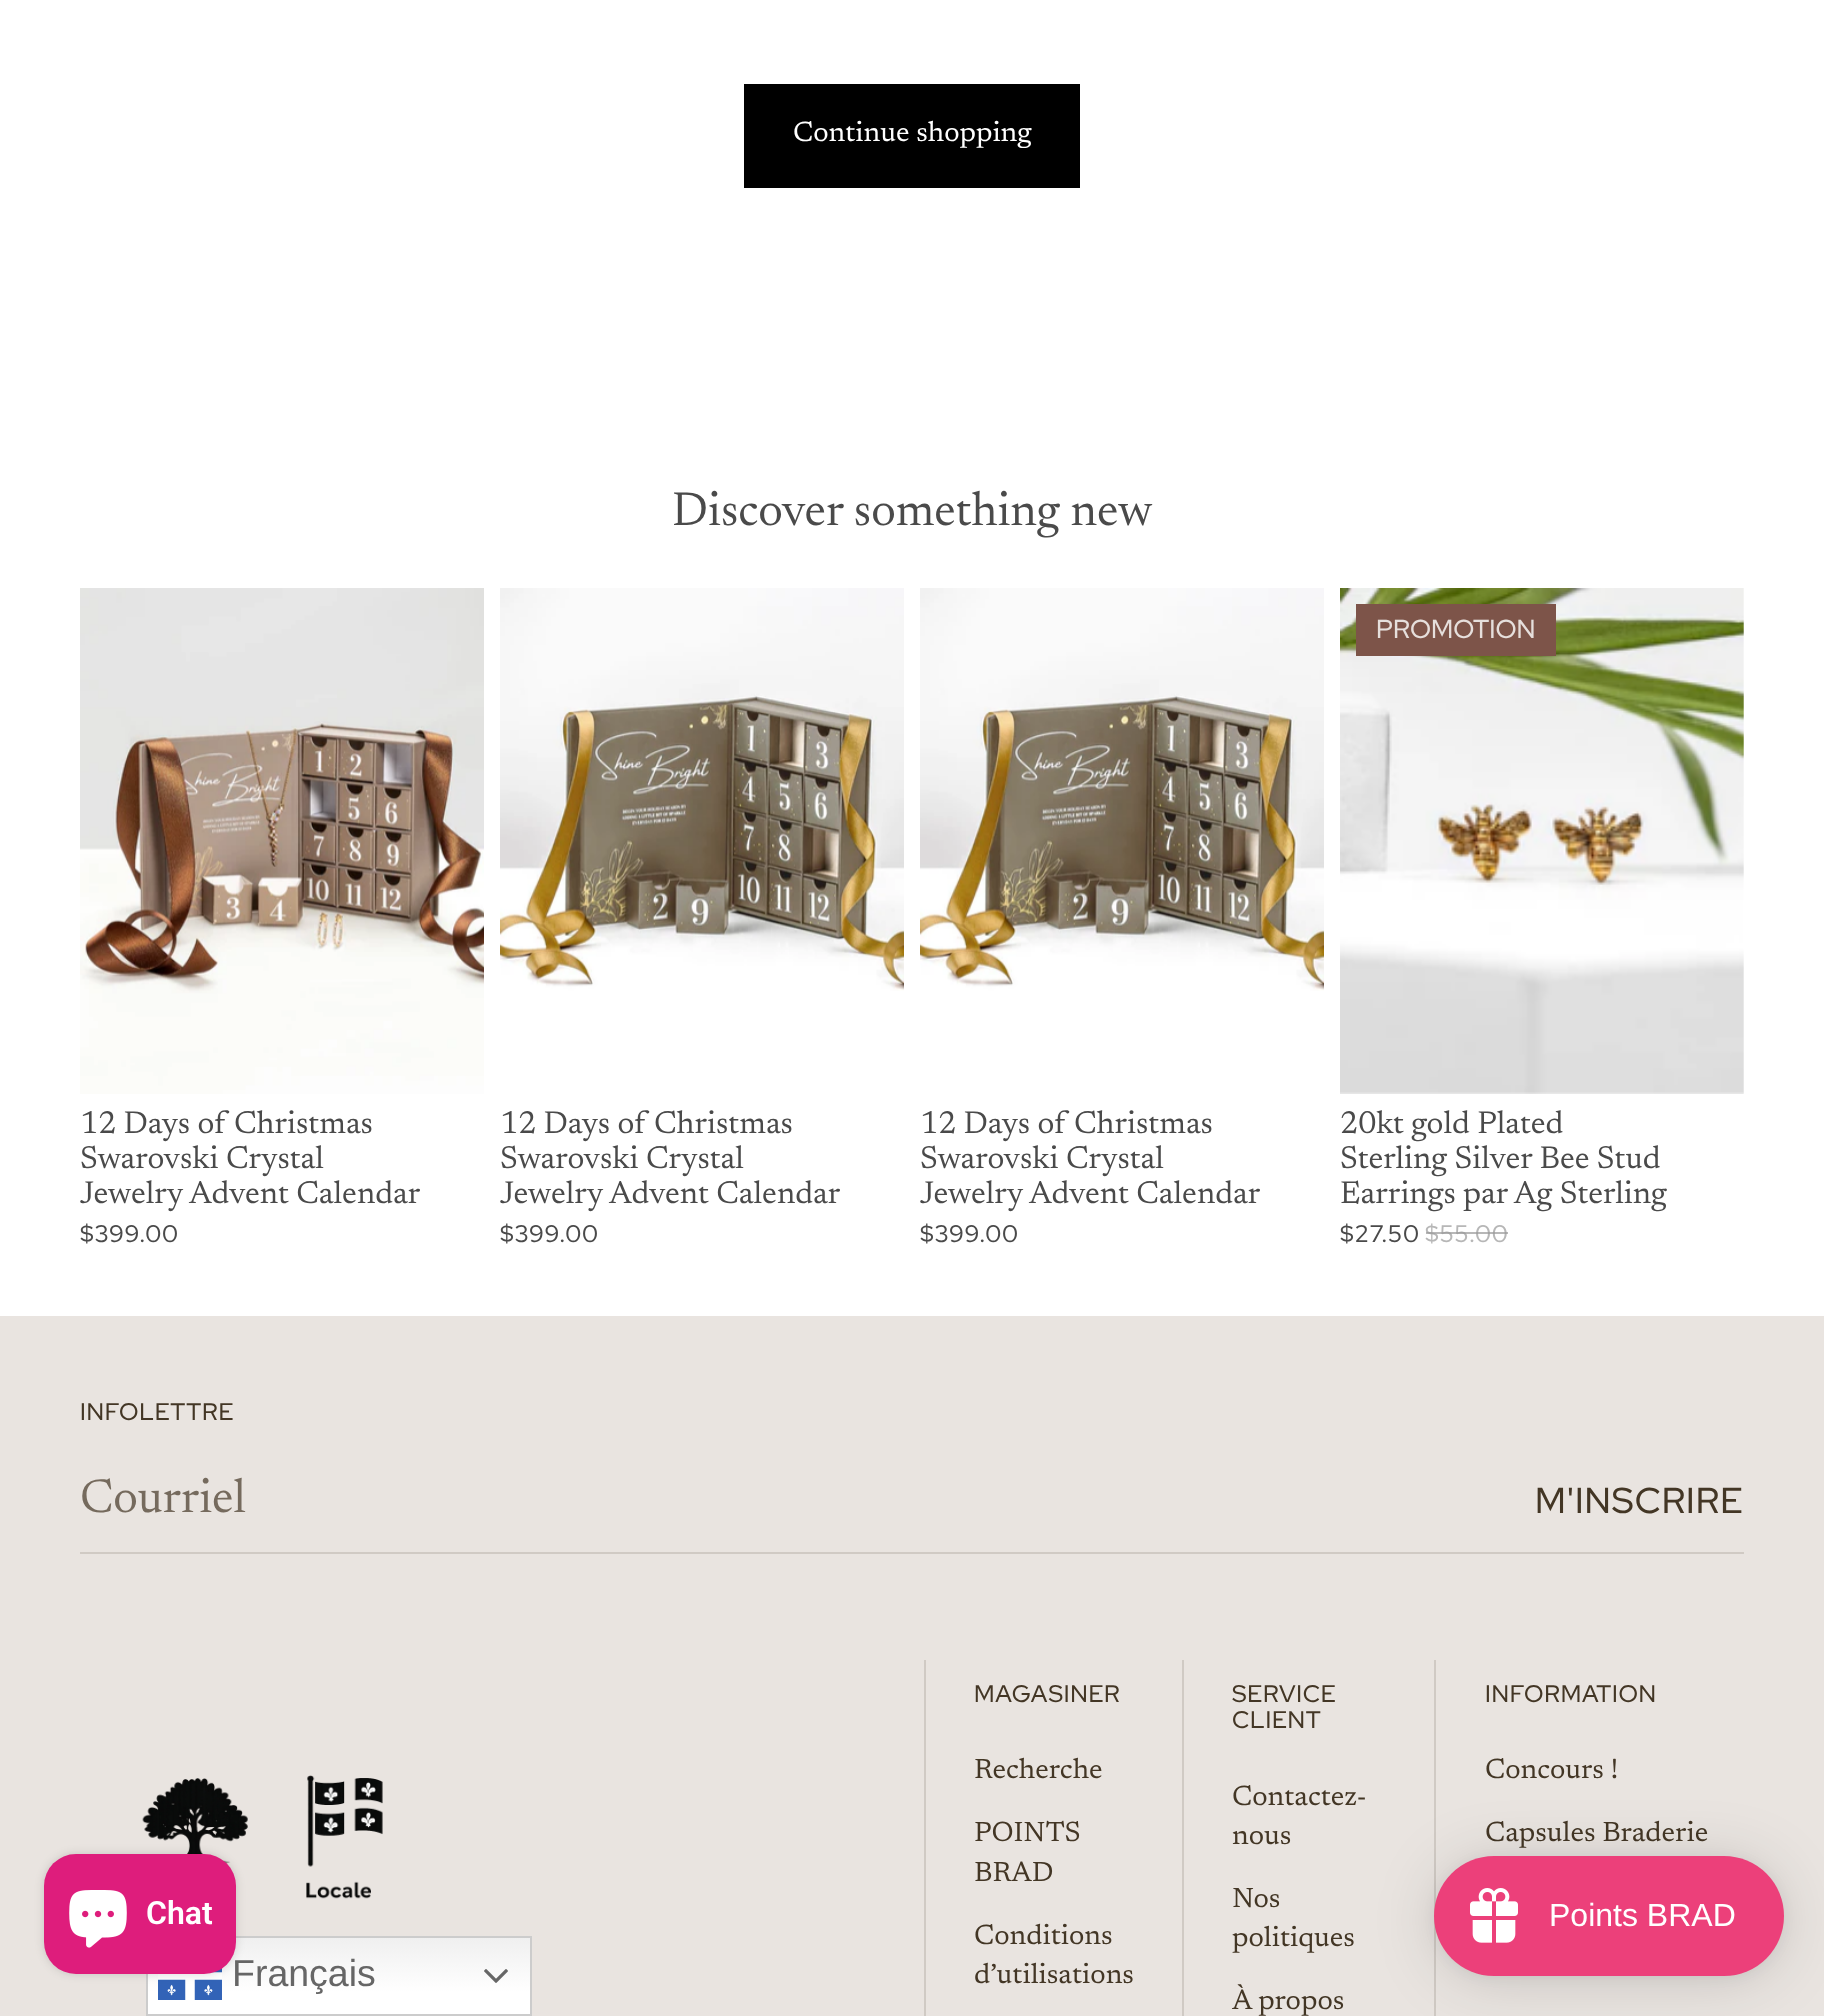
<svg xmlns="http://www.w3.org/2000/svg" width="1824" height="2016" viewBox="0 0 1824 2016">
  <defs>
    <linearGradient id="g1" gradientUnits="userSpaceOnUse" x1="339" y1="1936" x2="339" y2="2016"><stop offset="0" stop-color="#efefef"/><stop offset="0.7" stop-color="#ffffff"/></linearGradient>
    <filter id="blur1" x="-50%" y="-200%" width="200%" height="500%"><feGaussianBlur stdDeviation="5"/></filter>
    <filter id="blur2" x="-50%" y="-200%" width="200%" height="500%"><feGaussianBlur stdDeviation="30"/></filter>
    <filter id="blur3" x="-50%" y="-200%" width="200%" height="500%"><feGaussianBlur stdDeviation="6"/></filter>
  </defs>
  <rect width="100%" height="100%" fill="#ffffff"/>
  <rect x="744" y="84" width="336" height="104" fill="#000000"/>
  <text x="793" y="141" font-family="Newsreader" font-size="28" fill="#ffffff">Continue shopping</text>
  <text x="672" y="525" font-family="'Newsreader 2'" font-size="48" fill="#4a4a4a">Discover something new</text>
  <image x="80" y="588" width="404" height="506" href="img1.png"/>
  <text x="80" y="1133" font-family="'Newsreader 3'" font-size="32" fill="#4a4a4a">12 Days of Christmas</text>
  <text x="80" y="1168" font-family="'Newsreader 3'" font-size="32" fill="#4a4a4a">Swarovski Crystal</text>
  <text x="80" y="1203" font-family="'Newsreader 3'" font-size="32" fill="#4a4a4a">Jewelry Advent Calendar</text>
  <text x="80" y="1242" font-family="Red Hat Display" font-size="24" font-weight="500" letter-spacing="0.75" fill="#4a4a4a">$399.00</text>
  <image x="500" y="588" width="404" height="403" href="img2.png"/>
  <text x="500" y="1133" font-family="'Newsreader 3'" font-size="32" fill="#4a4a4a">12 Days of Christmas</text>
  <text x="500" y="1168" font-family="'Newsreader 3'" font-size="32" fill="#4a4a4a">Swarovski Crystal</text>
  <text x="500" y="1203" font-family="'Newsreader 3'" font-size="32" fill="#4a4a4a">Jewelry Advent Calendar</text>
  <text x="500" y="1242" font-family="Red Hat Display" font-size="24" font-weight="500" letter-spacing="0.75" fill="#4a4a4a">$399.00</text>
  <image x="920" y="588" width="404" height="403" href="img2.png"/>
  <text x="920" y="1133" font-family="'Newsreader 3'" font-size="32" fill="#4a4a4a">12 Days of Christmas</text>
  <text x="920" y="1168" font-family="'Newsreader 3'" font-size="32" fill="#4a4a4a">Swarovski Crystal</text>
  <text x="920" y="1203" font-family="'Newsreader 3'" font-size="32" fill="#4a4a4a">Jewelry Advent Calendar</text>
  <text x="920" y="1242" font-family="Red Hat Display" font-size="24" font-weight="500" letter-spacing="0.75" fill="#4a4a4a">$399.00</text>
  <image x="1340" y="588" width="404" height="506" href="img3.png"/>
  <rect x="1356" y="604" width="200" height="52" fill="#7d5449"/>
  <text x="1376" y="638" font-family="Red Hat Display" font-size="26" font-weight="500" fill="#e6dfdc">PROMOTION</text>
  <text x="1340" y="1133" font-family="'Newsreader 3'" font-size="32" fill="#4a4a4a">20kt gold Plated</text>
  <text x="1340" y="1168" font-family="'Newsreader 3'" font-size="32" fill="#4a4a4a">Sterling Silver Bee Stud</text>
  <text x="1340" y="1203" font-family="'Newsreader 3'" font-size="32" fill="#4a4a4a">Earrings par Ag Sterling</text>
  <text x="1340" y="1242" font-family="Red Hat Display" font-size="24" font-weight="500" letter-spacing="0.75" fill="#4a4a4a">$27.50</text>
  <text x="1425" y="1242" font-family="Red Hat Display" font-size="24" font-weight="500" letter-spacing="0.75" fill="#b7b7b7">$55.00</text>
  <rect x="1426" y="1232" width="82" height="2" fill="#999999" fill-opacity="0.71"/>
  <rect x="0" y="1316" width="1824" height="700" fill="#e9e4e0"/>
  <text x="80" y="1420" font-family="Red Hat Display" font-size="24" font-weight="500" letter-spacing="0.75" fill="#433625">INFOLETTRE</text>
  <rect x="80" y="1552" width="1664" height="2" fill="#d0cac4"/>
  <text x="80" y="1512" font-family="'Newsreader 2'" font-size="48" fill="#756a5d">Courriel</text>
  <text x="1535" y="1513" font-family="Red Hat Display" font-size="36" font-weight="500" letter-spacing="1" fill="#433625">M'INSCRIRE</text>
  <image x="142" y="1775" width="241" height="124" href="img4.png"/>
  <path d="M926 1660V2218L924 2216V1660Z" fill="#d0cac4"/>
  <text x="974" y="1702" font-family="Red Hat Display" font-size="24" font-weight="500" letter-spacing="0.75" fill="#433625">MAGASINER</text>
  <text x="974" y="1778" font-family="Newsreader" font-size="28" fill="#433625">Recherche</text>
  <text x="974" y="1841" font-family="Newsreader" font-size="28" fill="#433625">POINTS</text>
  <text x="974" y="1881" font-family="Newsreader" font-size="28" fill="#433625">BRAD</text>
  <text x="974" y="1944" font-family="Newsreader" font-size="28" fill="#433625">Conditions</text>
  <text x="974" y="1983" font-family="Newsreader" font-size="28" fill="#433625">d’utilisations</text>
  <path d="M1184 1660V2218L1182 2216V1660Z" fill="#d0cac4"/>
  <text x="1232" y="1702" font-family="Red Hat Display" font-size="24" font-weight="500" letter-spacing="0.75" fill="#433625">SERVICE</text>
  <text x="1232" y="1728" font-family="Red Hat Display" font-size="24" font-weight="500" letter-spacing="0.75" fill="#433625">CLIENT</text>
  <text x="1232" y="1805" font-family="Newsreader" font-size="28" fill="#433625">Contactez-</text>
  <text x="1232" y="1844" font-family="Newsreader" font-size="28" fill="#433625">nous</text>
  <text x="1232" y="1907" font-family="Newsreader" font-size="28" fill="#433625">Nos</text>
  <text x="1232" y="1946" font-family="Newsreader" font-size="28" fill="#433625">politiques</text>
  <text x="1232" y="2009" font-family="Newsreader" font-size="28" fill="#433625">À propos</text>
  <path d="M1436 1660V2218L1434 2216V1660Z" fill="#d0cac4"/>
  <text x="1485" y="1702" font-family="Red Hat Display" font-size="24" font-weight="500" letter-spacing="0.75" fill="#433625">INFORMATION</text>
  <text x="1485" y="1778" font-family="Newsreader" font-size="28" fill="#433625">Concours !</text>
  <text x="1485" y="1841" font-family="Newsreader" font-size="28" fill="#433625">Capsules Braderie</text>
  <rect x="148" y="1938" width="382" height="76" fill="url(#g1)"/>
  <rect x="147" y="1937" width="384" height="78" fill="none" stroke="#cccccc" stroke-width="2"/>
  <image x="158" y="1968" width="64" height="32" href="img7.png"/>
  <rect x="44" y="1854" width="192" height="120" rx="32" fill="#000000" fill-opacity="0.15" filter="url(#blur1)"/>
  <text x="232" y="1986" font-family="Liberation Sans" font-size="37.5" fill="#666666">Français</text>
  <rect x="44" y="1854" width="192" height="120" rx="32" fill="#de1d7c"/>
  <image x="69" y="1890" width="58" height="58" href="img5.png"/>
  <text x="146" y="1924" font-family="Roboto" font-size="32" font-weight="600" fill="#ffffff">Chat</text>
  <rect x="1434" y="1860" width="350" height="120" rx="60" fill="#000000" fill-opacity="0.15" filter="url(#blur2)"/>
  <rect x="1434" y="1858" width="350" height="120" rx="60" fill="#000000" fill-opacity="0.05" filter="url(#blur3)"/>
  <rect x="1434" y="1856" width="350" height="120" rx="60" fill="#ec407a"/>
  <image x="1470" y="1888" width="48" height="55" href="img6.png"/>
  <text x="1549" y="1926" font-family="Liberation Sans" font-size="32" fill="#ffffff">Points BRAD</text>
  <image x="484" y="1969" width="24" height="14" href="img8.png"/>
</svg>
